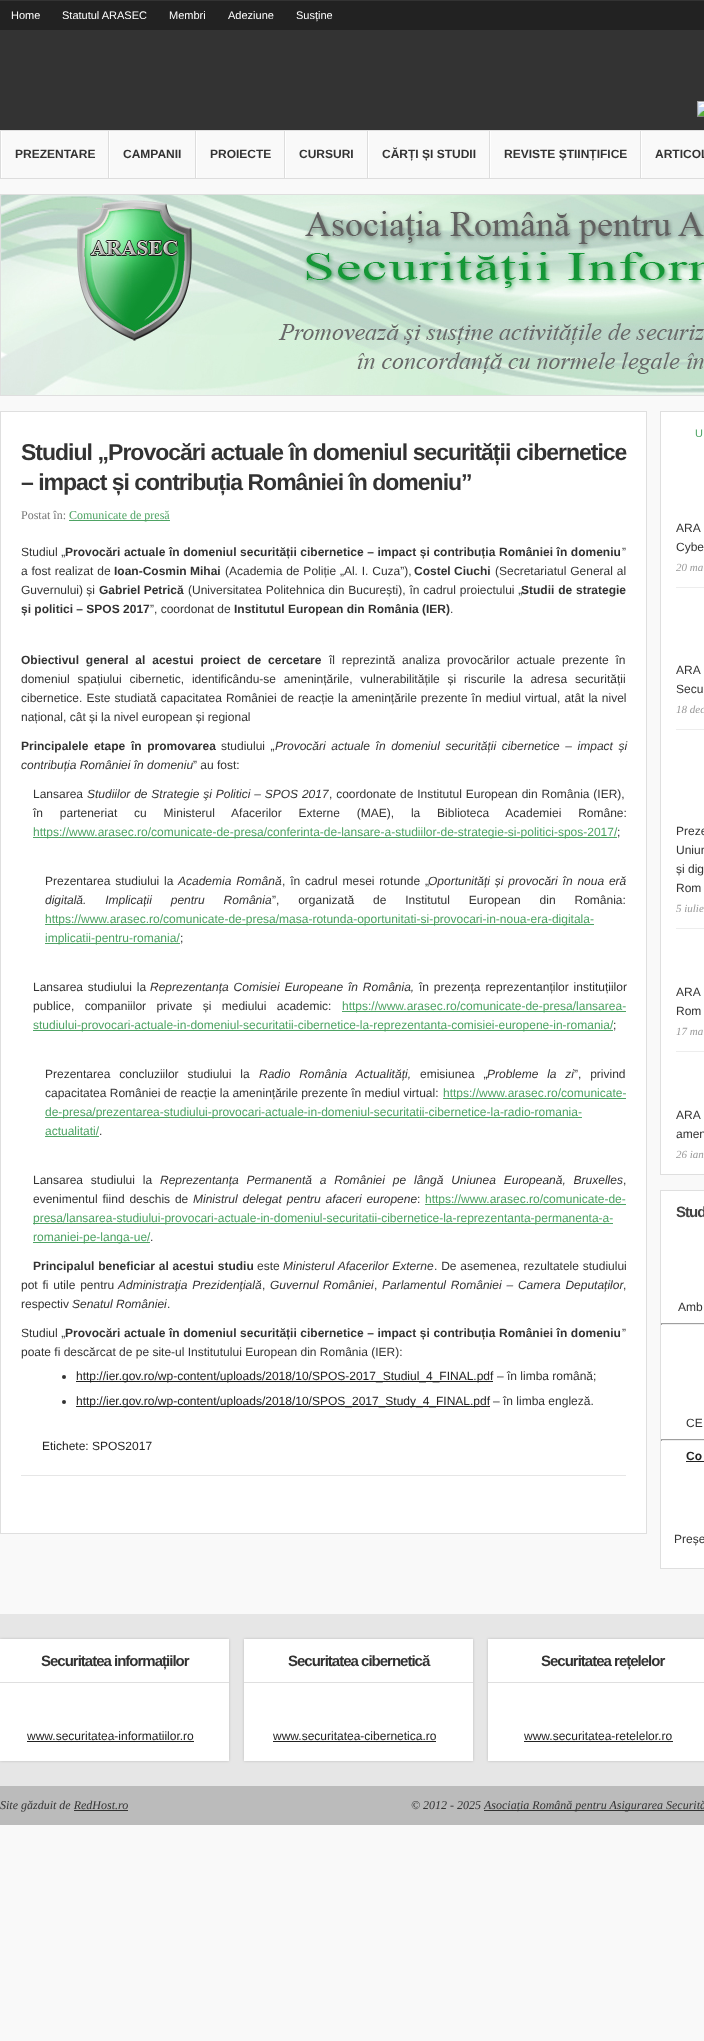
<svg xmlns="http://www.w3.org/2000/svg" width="704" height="2041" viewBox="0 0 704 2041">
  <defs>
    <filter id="blur1" x="-50%" y="-200%" width="200%" height="500%"><feGaussianBlur stdDeviation="1.5"/></filter>
  </defs>
  <rect width="100%" height="100%" fill="#f9f9f9"/>
  <rect x="0" y="1" width="704" height="29" fill="#222222"/>
  <rect x="0" y="0" width="704" height="1" fill="#333333"/>
  <text x="11" y="19" font-family="Liberation Sans" font-size="11" fill="#ffffff">Home</text>
  <text x="62" y="19" font-family="Liberation Sans" font-size="11" fill="#ffffff">Statutul ARASEC</text>
  <text x="169" y="19" font-family="Liberation Sans" font-size="11" fill="#ffffff">Membri</text>
  <text x="228" y="19" font-family="Liberation Sans" font-size="11" fill="#ffffff">Adeziune</text>
  <text x="296" y="19" font-family="Liberation Sans" font-size="11" fill="#ffffff">Susține</text>
  <rect x="0" y="30" width="704" height="100" fill="#333333"/>
  <image x="697" y="101" width="7" height="16" href="img1.png"/>
  <rect x="0" y="130" width="704" height="1" fill="#dfdfdf"/>
  <rect x="0" y="178" width="704" height="1" fill="#dddddd"/>
  <rect x="0" y="131" width="1" height="47" fill="#dddddd"/>
  <rect x="108" y="131" width="1" height="47" fill="#dddddd"/>
  <rect x="1" y="131" width="1" height="47" fill="#ffffff"/>
  <text x="15" y="158" font-family="Liberation Sans" font-size="12" font-weight="bold" fill="#333333">PREZENTARE</text>
  <rect x="195" y="131" width="1" height="47" fill="#dddddd"/>
  <rect x="109" y="131" width="1" height="47" fill="#ffffff"/>
  <text x="123" y="158" font-family="Liberation Sans" font-size="12" font-weight="bold" fill="#333333">CAMPANII</text>
  <rect x="284" y="131" width="1" height="47" fill="#dddddd"/>
  <rect x="196" y="131" width="1" height="47" fill="#ffffff"/>
  <text x="210" y="158" font-family="Liberation Sans" font-size="12" font-weight="bold" fill="#333333">PROIECTE</text>
  <rect x="367" y="131" width="1" height="47" fill="#dddddd"/>
  <rect x="285" y="131" width="1" height="47" fill="#ffffff"/>
  <text x="299" y="158" font-family="Liberation Sans" font-size="12" font-weight="bold" fill="#333333">CURSURI</text>
  <rect x="489" y="131" width="1" height="47" fill="#dddddd"/>
  <rect x="368" y="131" width="1" height="47" fill="#ffffff"/>
  <text x="382" y="158" font-family="Liberation Sans" font-size="12" font-weight="bold" fill="#333333">CĂRȚI ȘI STUDII</text>
  <rect x="640" y="131" width="1" height="47" fill="#dddddd"/>
  <rect x="490" y="131" width="1" height="47" fill="#ffffff"/>
  <text x="504" y="158" font-family="Liberation Sans" font-size="12" font-weight="bold" fill="#333333">REVISTE ȘTIINȚIFICE</text>
  <rect x="641" y="131" width="1" height="47" fill="#ffffff"/>
  <text x="655" y="158" font-family="Liberation Sans" font-size="12" font-weight="bold" fill="#333333">ARTICOL</text>
  <image x="1" y="195" width="703" height="200" href="img2.png"/>
  <rect x="0.5" y="194.5" width="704" height="201" fill="none" stroke="#dfdfdf"/>
  <rect x="0.5" y="411.5" width="646" height="1122" fill="#ffffff" stroke="#dfdfdf"/>
  <text x="21" y="460" word-spacing="0.25" font-family="Liberation Sans" font-size="23" font-weight="bold" letter-spacing="-1" fill="#333333">Studiul „Provocări actuale în domeniul securității cibernetice</text>
  <text x="21" y="490" font-family="Liberation Sans" font-size="23" font-weight="bold" letter-spacing="-1" fill="#333333">– impact și contribuția României în domeniu”</text>
  <text x="21" y="519" font-family="Liberation Serif" font-size="12" fill="#777777">Postat în:</text>
  <rect x="69" y="520" width="101" height="1" fill="#4ea364"/>
  <text x="69" y="519" font-family="Liberation Serif" font-size="12" fill="#4ea364">Comunicate de presă</text>
  <text x="21" y="556" word-spacing="0.25" font-family="Liberation Sans" font-size="12" fill="#333333">Studiul „</text>
  <text x="65" y="556" word-spacing="0.25" font-family="Liberation Sans" font-size="12" font-weight="bold" fill="#333333">Provocări actuale în domeniul securității cibernetice – impact și contribuția României în domeniu</text>
  <text x="622" y="556" font-family="Liberation Sans" font-size="12" fill="#333333">”</text>
  <text x="21" y="575" word-spacing="0.5" font-family="Liberation Sans" font-size="12" fill="#333333">a fost realizat de</text>
  <text x="114" y="575" font-family="Liberation Sans" font-size="12" font-weight="bold" fill="#333333">Ioan-Cosmin Mihai</text>
  <text x="225" y="575" word-spacing="0.5" font-family="Liberation Sans" font-size="12" fill="#333333">(Academia de Poliție „Al. I. Cuza”),</text>
  <text x="414" y="575" font-family="Liberation Sans" font-size="12" font-weight="bold" fill="#333333">Costel Ciuchi</text>
  <text x="495" y="575" word-spacing="0.5" font-family="Liberation Sans" font-size="12" fill="#333333">(Secretariatul General al</text>
  <text x="21" y="594" font-family="Liberation Sans" font-size="12" fill="#333333">Guvernului) și</text>
  <text x="99" y="594" font-family="Liberation Sans" font-size="12" font-weight="bold" fill="#333333">Gabriel Petrică</text>
  <text x="188" y="594" word-spacing="0.5" font-family="Liberation Sans" font-size="12" fill="#333333">(Universitatea Politehnica din București), în cadrul proiectului „</text>
  <text x="521" y="594" word-spacing="0.5" font-family="Liberation Sans" font-size="12" font-weight="bold" fill="#333333">Studii de strategie</text>
  <text x="21" y="613" font-family="Liberation Sans" font-size="12" font-weight="bold" fill="#333333">și politici – SPOS 2017</text>
  <text x="150" y="613" font-family="Liberation Sans" font-size="12" fill="#333333">”, coordonat de</text>
  <text x="234" y="613" font-family="Liberation Sans" font-size="12" font-weight="bold" fill="#333333">Institutul European din România (IER)</text>
  <text x="450" y="613" font-family="Liberation Sans" font-size="12" fill="#333333">.</text>
  <text x="21" y="664" word-spacing="3.5" font-family="Liberation Sans" font-size="12" font-weight="bold" fill="#333333">Obiectivul general al acestui proiect de cercetare</text>
  <text x="329" y="664" word-spacing="3.5" font-family="Liberation Sans" font-size="12" fill="#333333">îl reprezintă analiza provocărilor actuale prezente în</text>
  <text x="21" y="683" word-spacing="4.5" font-family="Liberation Sans" font-size="12" fill="#333333">domeniul spațiului cibernetic, identificându-se amenințările, vulnerabilitățile și riscurile la adresa securității</text>
  <text x="21" y="702" word-spacing="0.7" font-family="Liberation Sans" font-size="12" fill="#333333">cibernetice. Este studiată capacitatea României de reacție la amenințările prezente în mediul virtual, atât la nivel</text>
  <text x="21" y="721" font-family="Liberation Sans" font-size="12" fill="#333333">național, cât și la nivel european și regional</text>
  <text x="21" y="750" word-spacing="2.25" font-family="Liberation Sans" font-size="12" font-weight="bold" fill="#333333">Principalele etape în promovarea</text>
  <text x="221" y="750" word-spacing="2.25" font-family="Liberation Sans" font-size="12" fill="#333333">studiului „</text>
  <text x="275" y="750" word-spacing="2.25" font-family="Liberation Sans" font-size="12" font-style="italic" fill="#333333">Provocări actuale în domeniul securității cibernetice – impact și</text>
  <text x="21" y="769" font-family="Liberation Sans" font-size="12" font-style="italic" fill="#333333">contribuția României în domeniu</text>
  <text x="193" y="769" font-family="Liberation Sans" font-size="12" fill="#333333">” au fost:</text>
  <text x="33" y="798" font-family="Liberation Sans" font-size="12" fill="#333333">Lansarea</text>
  <text x="87" y="798" word-spacing="0.5" font-family="Liberation Sans" font-size="12" font-style="italic" fill="#333333">Studiilor de Strategie şi Politici – SPOS 2017</text>
  <text x="329" y="798" word-spacing="0.5" font-family="Liberation Sans" font-size="12" fill="#333333">, coordonate de Institutul European din România (IER),</text>
  <text x="33" y="817" word-spacing="13.5" font-family="Liberation Sans" font-size="12" fill="#333333">în parteneriat cu Ministerul Afacerilor Externe (MAE), la Biblioteca Academiei Române:</text>
  <rect x="33" y="837" width="584" height="1" fill="#4ea364"/>
  <text x="33" y="836" font-family="Liberation Sans" font-size="12" fill="#4ea364">https://www.arasec.ro/comunicate-de-presa/conferinta-de-lansare-a-studiilor-de-strategie-si-politici-spos-2017/</text>
  <text x="617" y="836" font-family="Liberation Sans" font-size="12" fill="#333333">;</text>
  <text x="45" y="885" word-spacing="1.5" font-family="Liberation Sans" font-size="12" fill="#333333">Prezentarea studiului la</text>
  <text x="178" y="885" word-spacing="1.5" font-family="Liberation Sans" font-size="12" font-style="italic" fill="#333333">Academia Română</text>
  <text x="282" y="885" word-spacing="1.5" font-family="Liberation Sans" font-size="12" fill="#333333">, în cadrul mesei rotunde „</text>
  <text x="428" y="885" word-spacing="1.5" font-family="Liberation Sans" font-size="12" font-style="italic" fill="#333333">Oportunități și provocări în noua eră</text>
  <text x="45" y="904" word-spacing="15.5" font-family="Liberation Sans" font-size="12" font-style="italic" fill="#333333">digitală. Implicații pentru România</text>
  <text x="272" y="904" word-spacing="15.5" font-family="Liberation Sans" font-size="12" fill="#333333">”, organizată de Institutul European din România:</text>
  <rect x="45" y="924" width="549" height="1" fill="#4ea364"/>
  <text x="45" y="923" font-family="Liberation Sans" font-size="12" fill="#4ea364">https://www.arasec.ro/comunicate-de-presa/masa-rotunda-oportunitati-si-provocari-in-noua-era-digitala-</text>
  <rect x="45" y="943" width="135" height="1" fill="#4ea364"/>
  <text x="45" y="942" font-family="Liberation Sans" font-size="12" fill="#4ea364">implicatii-pentru-romania/</text>
  <text x="180" y="942" font-family="Liberation Sans" font-size="12" fill="#333333">;</text>
  <text x="33" y="991" word-spacing="1.5" font-family="Liberation Sans" font-size="12" fill="#333333">Lansarea studiului la</text>
  <text x="150" y="991" word-spacing="1.5" font-family="Liberation Sans" font-size="12" font-style="italic" fill="#333333">Reprezentanța Comisiei Europeane în România,</text>
  <text x="419" y="991" word-spacing="1.5" font-family="Liberation Sans" font-size="12" fill="#333333">în prezența reprezentanților instituțiilor</text>
  <text x="33" y="1010" word-spacing="7" font-family="Liberation Sans" font-size="12" fill="#333333">publice, companiilor private și mediului academic:</text>
  <rect x="342" y="1011" width="284" height="1" fill="#4ea364"/>
  <text x="342" y="1010" font-family="Liberation Sans" font-size="12" fill="#4ea364">https://www.arasec.ro/comunicate-de-presa/lansarea-</text>
  <rect x="33" y="1030" width="580" height="1" fill="#4ea364"/>
  <text x="33" y="1029" font-family="Liberation Sans" font-size="12" fill="#4ea364">studiului-provocari-actuale-in-domeniul-securitatii-cibernetice-la-reprezentanta-comisiei-europene-in-romania/</text>
  <text x="613" y="1029" font-family="Liberation Sans" font-size="12" fill="#333333">;</text>
  <text x="45" y="1078" word-spacing="5.5" font-family="Liberation Sans" font-size="12" fill="#333333">Prezentarea concluziilor studiului la</text>
  <text x="259" y="1078" word-spacing="5.5" font-family="Liberation Sans" font-size="12" font-style="italic" fill="#333333">Radio România Actualități,</text>
  <text x="420" y="1078" word-spacing="5.5" font-family="Liberation Sans" font-size="12" fill="#333333">emisiunea „</text>
  <text x="487" y="1078" word-spacing="5.5" font-family="Liberation Sans" font-size="12" font-style="italic" fill="#333333">Probleme la zi</text>
  <text x="574" y="1078" word-spacing="5.5" font-family="Liberation Sans" font-size="12" fill="#333333">”, privind</text>
  <text x="45" y="1097" font-family="Liberation Sans" font-size="12" fill="#333333">capacitatea României de reacție la amenințările prezente în mediul virtual:</text>
  <rect x="443" y="1098" width="183" height="1" fill="#4ea364"/>
  <text x="443" y="1097" font-family="Liberation Sans" font-size="12" fill="#4ea364">https://www.arasec.ro/comunicate-</text>
  <rect x="45" y="1117" width="537" height="1" fill="#4ea364"/>
  <text x="45" y="1116" font-family="Liberation Sans" font-size="12" fill="#4ea364">de-presa/prezentarea-studiului-provocari-actuale-in-domeniul-securitatii-cibernetice-la-radio-romania-</text>
  <text x="45" y="1135" font-family="Liberation Sans" font-size="12" fill="#4ea364">actualitati/</text>
  <rect x="45" y="1136" width="54" height="1" fill="#4ea364"/>
  <text x="99" y="1135" font-family="Liberation Sans" font-size="12" fill="#333333">.</text>
  <text x="33" y="1184" word-spacing="4.5" font-family="Liberation Sans" font-size="12" fill="#333333">Lansarea studiului la</text>
  <text x="160" y="1184" word-spacing="4.5" font-family="Liberation Sans" font-size="12" font-style="italic" fill="#333333">Reprezentanța Permanentă a României pe lângă Uniunea Europeană, Bruxelles</text>
  <text x="623" y="1184" font-family="Liberation Sans" font-size="12" fill="#333333">,</text>
  <text x="33" y="1203" word-spacing="1.5" font-family="Liberation Sans" font-size="12" fill="#333333">evenimentul fiind deschis de</text>
  <text x="193" y="1203" word-spacing="1.5" font-family="Liberation Sans" font-size="12" font-style="italic" fill="#333333">Ministrul delegat pentru afaceri europene</text>
  <text x="417" y="1203" font-family="Liberation Sans" font-size="12" fill="#333333">:</text>
  <rect x="425" y="1204" width="201" height="1" fill="#4ea364"/>
  <text x="425" y="1203" font-family="Liberation Sans" font-size="12" fill="#4ea364">https://www.arasec.ro/comunicate-de-</text>
  <rect x="33" y="1223" width="580" height="1" fill="#4ea364"/>
  <text x="33" y="1222" font-family="Liberation Sans" font-size="12" fill="#4ea364">presa/lansarea-studiului-provocari-actuale-in-domeniul-securitatii-cibernetice-la-reprezentanta-permanenta-a-</text>
  <rect x="33" y="1242" width="117" height="1" fill="#4ea364"/>
  <text x="33" y="1241" font-family="Liberation Sans" font-size="12" fill="#4ea364">romaniei-pe-langa-ue/</text>
  <text x="150" y="1241" font-family="Liberation Sans" font-size="12" fill="#333333">.</text>
  <text x="33" y="1270" word-spacing="0.5" font-family="Liberation Sans" font-size="12" font-weight="bold" fill="#333333">Principalul beneficiar al acestui studiu</text>
  <text x="257" y="1270" font-family="Liberation Sans" font-size="12" fill="#333333">este</text>
  <text x="283" y="1270" word-spacing="0.5" font-family="Liberation Sans" font-size="12" font-style="italic" fill="#333333">Ministerul Afacerilor Externe</text>
  <text x="434" y="1270" word-spacing="0.5" font-family="Liberation Sans" font-size="12" fill="#333333">. De asemenea, rezultatele studiului</text>
  <text x="21" y="1289" word-spacing="1.5" font-family="Liberation Sans" font-size="12" fill="#333333">pot fi utile pentru</text>
  <text x="118" y="1289" word-spacing="1.5" font-family="Liberation Sans" font-size="12" font-style="italic" fill="#333333">Administraţia Prezidenţială</text>
  <text x="262" y="1289" font-family="Liberation Sans" font-size="12" fill="#333333">,</text>
  <text x="270" y="1289" word-spacing="1" font-family="Liberation Sans" font-size="12" font-style="italic" fill="#333333">Guvernul României</text>
  <text x="374" y="1289" font-family="Liberation Sans" font-size="12" fill="#333333">,</text>
  <text x="382" y="1289" word-spacing="1.5" font-family="Liberation Sans" font-size="12" font-style="italic" fill="#333333">Parlamentul României – Camera Deputaților</text>
  <text x="623" y="1289" font-family="Liberation Sans" font-size="12" fill="#333333">,</text>
  <text x="21" y="1308" font-family="Liberation Sans" font-size="12" fill="#333333">respectiv</text>
  <text x="72" y="1308" font-family="Liberation Sans" font-size="12" font-style="italic" fill="#333333">Senatul României</text>
  <text x="167" y="1308" font-family="Liberation Sans" font-size="12" fill="#333333">.</text>
  <text x="21" y="1337" word-spacing="0.25" font-family="Liberation Sans" font-size="12" fill="#333333">Studiul „</text>
  <text x="65" y="1337" word-spacing="0.25" font-family="Liberation Sans" font-size="12" font-weight="bold" fill="#333333">Provocări actuale în domeniul securității cibernetice – impact și contribuția României în domeniu</text>
  <text x="622" y="1337" font-family="Liberation Sans" font-size="12" fill="#333333">”</text>
  <text x="21" y="1356" font-family="Liberation Sans" font-size="12" fill="#333333">poate fi descărcat de pe site-ul Institutului European din România (IER):</text>
  <circle cx="64" cy="1377" r="2" fill="#333333"/>
  <rect x="76" y="1381" width="417" height="1" fill="#222222"/>
  <text x="76" y="1380" font-family="Liberation Sans" font-size="12" fill="#222222">http://ier.gov.ro/wp-content/uploads/2018/10/SPOS-2017_Studiul_4_FINAL.pdf</text>
  <text x="497" y="1380" font-family="Liberation Sans" font-size="12" fill="#333333">– în limba română;</text>
  <circle cx="64" cy="1402" r="2" fill="#333333"/>
  <rect x="76" y="1406" width="414" height="1" fill="#222222"/>
  <text x="76" y="1405" font-family="Liberation Sans" font-size="12" fill="#222222">http://ier.gov.ro/wp-content/uploads/2018/10/SPOS_2017_Study_4_FINAL.pdf</text>
  <text x="493" y="1405" font-family="Liberation Sans" font-size="12" fill="#333333">– în limba engleză.</text>
  <text x="42" y="1450" font-family="Liberation Sans" font-size="12" fill="#222222">Etichete: SPOS2017</text>
  <rect x="21" y="1475" width="605" height="1" fill="#e6e6e6"/>
  <rect x="660.5" y="411.5" width="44" height="763" fill="#ffffff" stroke="#dfdfdf"/>
  <text x="695" y="437" font-family="Liberation Sans" font-size="11" fill="#4ea364">U</text>
  <rect x="676" y="587" width="28" height="1" fill="#ededed"/>
  <text x="676" y="532" font-family="Liberation Sans" font-size="12" fill="#333333">ARA</text>
  <text x="676" y="551" font-family="Liberation Sans" font-size="12" fill="#333333">Cybe</text>
  <text x="676" y="571" font-family="Liberation Serif" font-size="11" font-style="italic" fill="#999999">20 ma</text>
  <rect x="676" y="729" width="28" height="1" fill="#ededed"/>
  <text x="676" y="674" font-family="Liberation Sans" font-size="12" fill="#333333">ARA</text>
  <text x="676" y="693" font-family="Liberation Sans" font-size="12" fill="#333333">Secu</text>
  <text x="676" y="713" font-family="Liberation Serif" font-size="11" font-style="italic" fill="#999999">18 dec</text>
  <rect x="676" y="928" width="28" height="1" fill="#ededed"/>
  <text x="676" y="835" font-family="Liberation Sans" font-size="12" fill="#333333">Preze</text>
  <text x="676" y="854" font-family="Liberation Sans" font-size="12" fill="#333333">Uniun</text>
  <text x="676" y="873" font-family="Liberation Sans" font-size="12" fill="#333333">și dig</text>
  <text x="676" y="892" font-family="Liberation Sans" font-size="12" fill="#333333">Rom</text>
  <text x="676" y="912" font-family="Liberation Serif" font-size="11" font-style="italic" fill="#999999">5 iulie</text>
  <rect x="676" y="1051" width="28" height="1" fill="#ededed"/>
  <text x="676" y="996" font-family="Liberation Sans" font-size="12" fill="#333333">ARA</text>
  <text x="676" y="1015" font-family="Liberation Sans" font-size="12" fill="#333333">Rom</text>
  <text x="676" y="1035" font-family="Liberation Serif" font-size="11" font-style="italic" fill="#999999">17 ma</text>
  <text x="676" y="1119" font-family="Liberation Sans" font-size="12" fill="#333333">ARA</text>
  <text x="676" y="1138" font-family="Liberation Sans" font-size="12" fill="#333333">amen</text>
  <text x="676" y="1158" font-family="Liberation Serif" font-size="11" font-style="italic" fill="#999999">26 ian</text>
  <rect x="660.5" y="1190.5" width="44" height="378" fill="#ffffff" stroke="#dfdfdf"/>
  <text x="676" y="1217" font-family="Liberation Sans" font-size="15" font-weight="bold" letter-spacing="-1" fill="#444444">Stud</text>
  <text x="678" y="1311" font-family="Liberation Sans" font-size="12" fill="#333333">Amb</text>
  <rect x="661" y="1323" width="43" height="1" fill="#9f9f9f"/>
  <rect x="661" y="1324" width="43" height="1" fill="#eeeeee"/>
  <rect x="661" y="1323" width="1" height="2" fill="#9f9f9f"/>
  <text x="686" y="1427" font-family="Liberation Sans" font-size="12" fill="#333333">CE</text>
  <rect x="661" y="1439" width="43" height="1" fill="#9f9f9f"/>
  <rect x="661" y="1440" width="43" height="1" fill="#eeeeee"/>
  <rect x="661" y="1439" width="1" height="2" fill="#9f9f9f"/>
  <text x="686" y="1460" font-family="Liberation Sans" font-size="12" font-weight="bold" fill="#222222">Co</text>
  <rect x="686" y="1461" width="18" height="1" fill="#222222"/>
  <text x="674" y="1543" font-family="Liberation Sans" font-size="12" fill="#333333">Preșe</text>
  <rect x="0" y="1614" width="704" height="172" fill="#e6e6e6"/>
  <rect x="0" y="1639" width="229" height="122" fill="#bbbbbb" filter="url(#blur1)"/>
  <rect x="0" y="1639" width="229" height="122" fill="#ffffff"/>
  <rect x="0" y="1682" width="229" height="1" fill="#dfdfdf"/>
  <text x="41" y="1666" font-family="Liberation Sans" font-size="15" font-weight="bold" letter-spacing="-1" fill="#333333">Securitatea informațiilor</text>
  <text x="27" y="1740" font-family="Liberation Sans" font-size="12" fill="#222222">www.securitatea-informatiilor.ro</text>
  <rect x="27" y="1741" width="167" height="1" fill="#222222"/>
  <rect x="244" y="1639" width="229" height="122" fill="#bbbbbb" filter="url(#blur1)"/>
  <rect x="244" y="1639" width="229" height="122" fill="#ffffff"/>
  <rect x="244" y="1682" width="229" height="1" fill="#dfdfdf"/>
  <text x="288" y="1666" font-family="Liberation Sans" font-size="15" font-weight="bold" letter-spacing="-1" fill="#333333">Securitatea cibernetică</text>
  <text x="273" y="1740" font-family="Liberation Sans" font-size="12" fill="#222222">www.securitatea-cibernetica.ro</text>
  <rect x="273" y="1741" width="163" height="1" fill="#222222"/>
  <rect x="488" y="1639" width="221" height="122" fill="#bbbbbb" filter="url(#blur1)"/>
  <rect x="488" y="1639" width="216" height="122" fill="#ffffff"/>
  <rect x="488" y="1682" width="216" height="1" fill="#dfdfdf"/>
  <text x="541" y="1666" font-family="Liberation Sans" font-size="15" font-weight="bold" letter-spacing="-1" fill="#333333">Securitatea rețelelor</text>
  <text x="524" y="1740" font-family="Liberation Sans" font-size="12" fill="#222222">www.securitatea-retelelor.ro</text>
  <rect x="524" y="1741" width="149" height="1" fill="#222222"/>
  <rect x="0" y="1786" width="704" height="39" fill="#bbbbbb"/>
  <text x="0" y="1809" font-family="Liberation Serif" font-size="12" font-style="italic" fill="#333333">Site găzduit de RedHost.ro</text>
  <rect x="74" y="1810" width="54" height="1" fill="#333333"/>
  <text x="411" y="1809" font-family="Liberation Serif" font-size="12" font-style="italic" fill="#333333">© 2012 - 2025</text>
  <rect x="484" y="1810" width="220" height="1" fill="#333333"/>
  <text x="484" y="1809" font-family="Liberation Serif" font-size="12" font-style="italic" fill="#333333">Asociația Română pentru Asigurarea Securită</text>
</svg>
